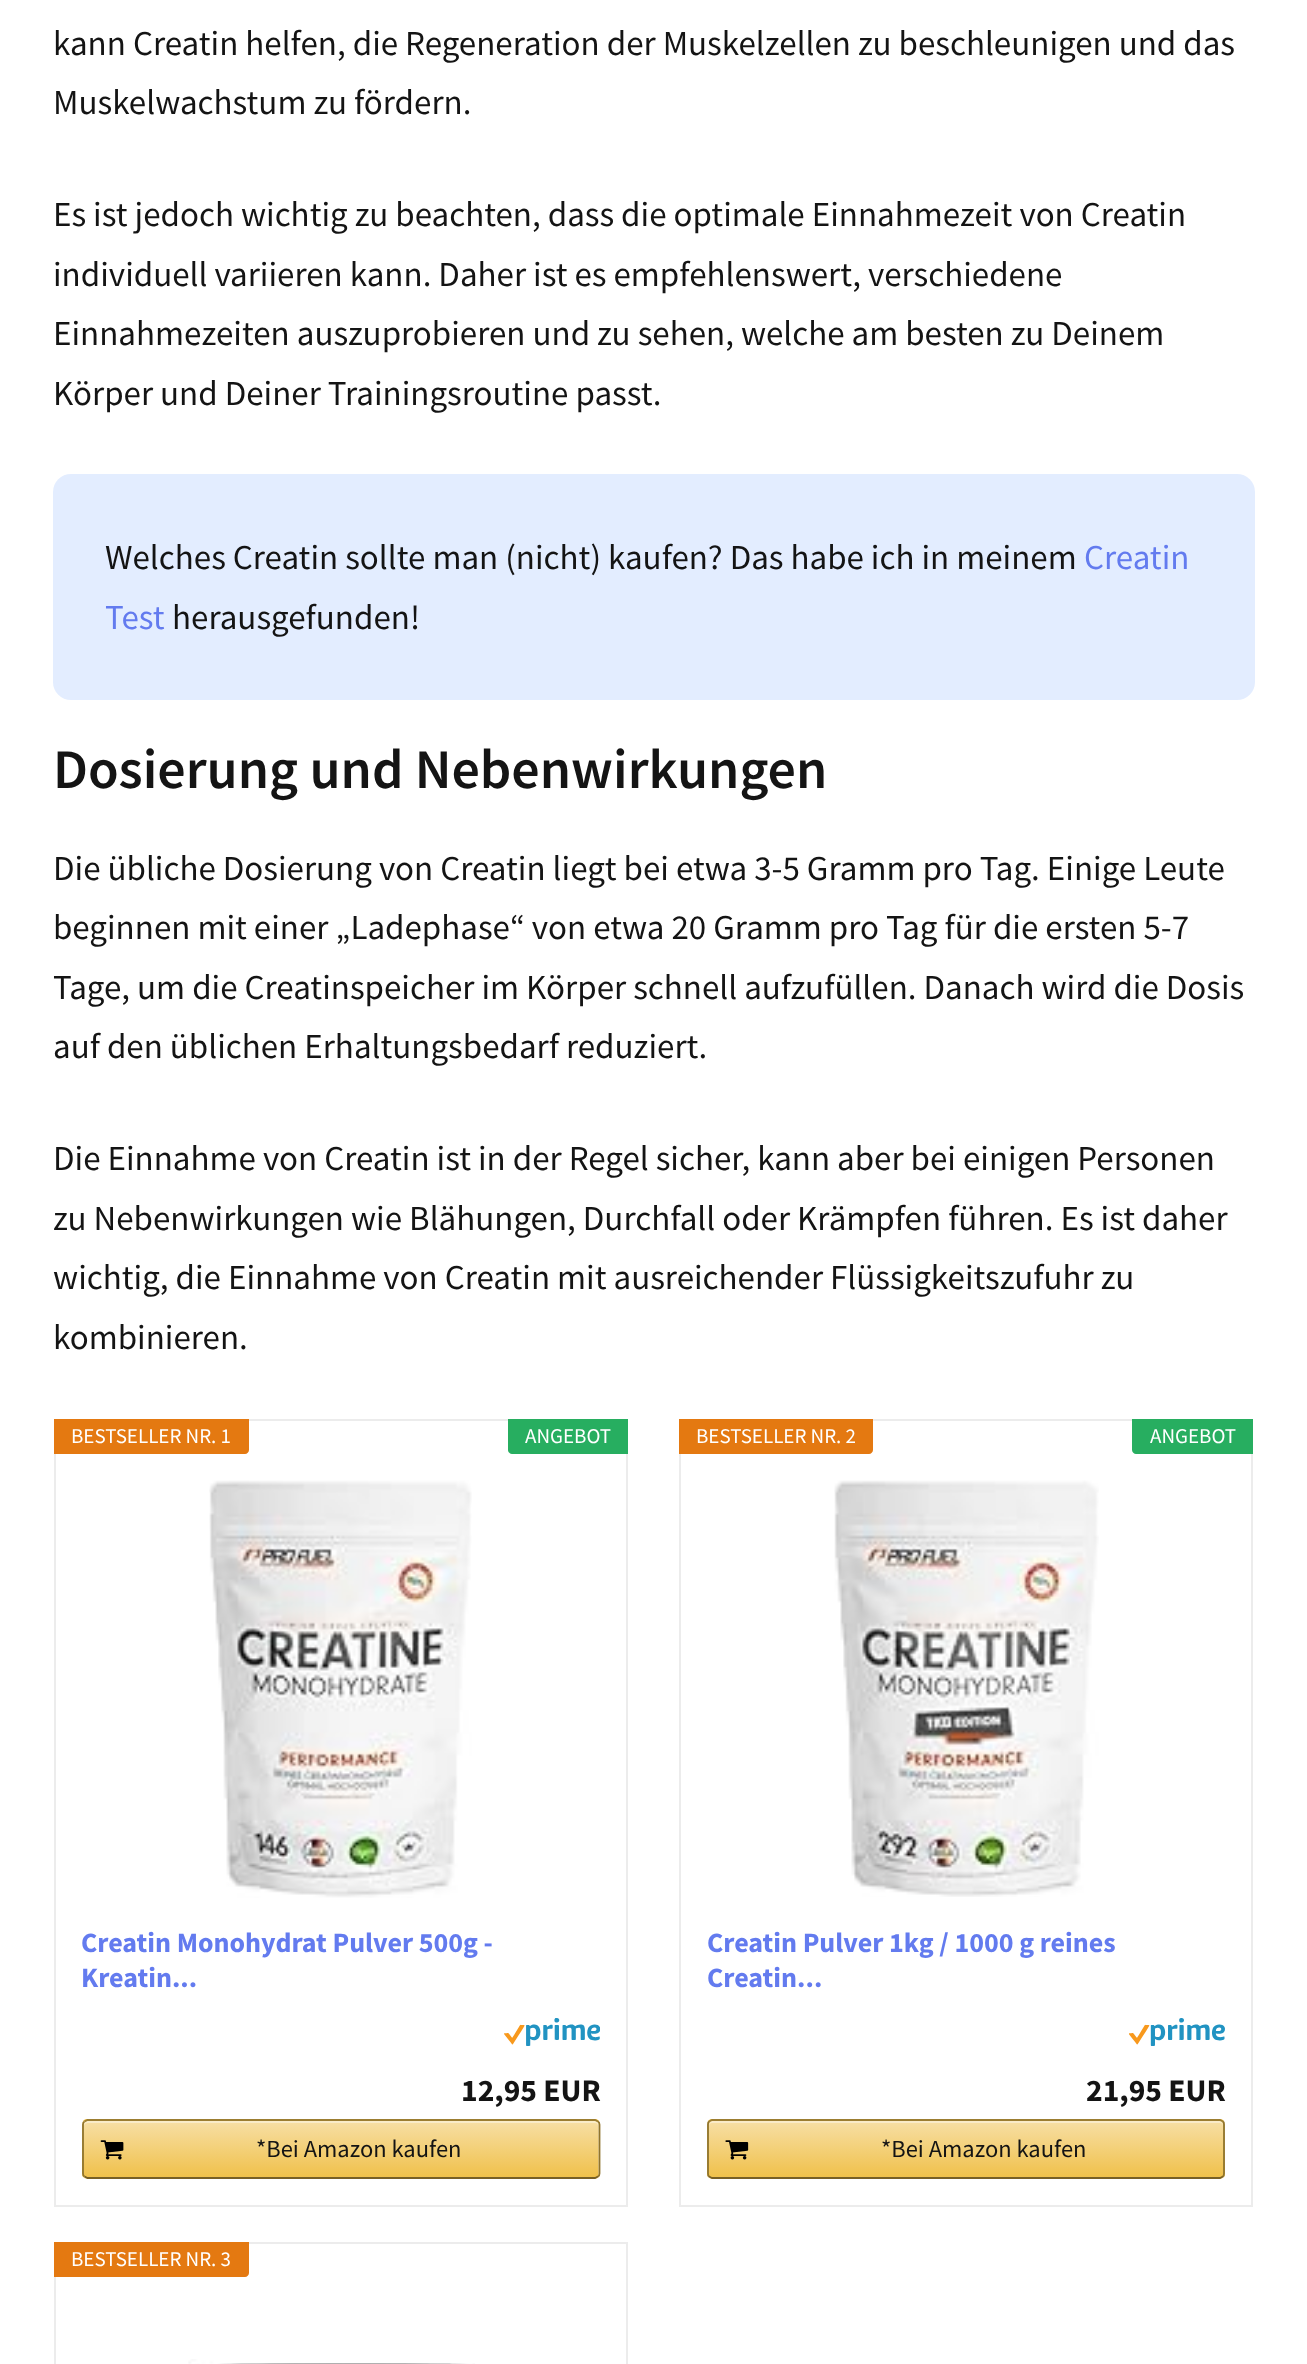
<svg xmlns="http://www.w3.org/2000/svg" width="1307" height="2364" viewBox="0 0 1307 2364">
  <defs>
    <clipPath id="clip1"><rect x="82" y="2119" width="518" height="60" rx="5"/></clipPath>
    <linearGradient id="g1" gradientUnits="userSpaceOnUse" x1="341" y1="2065" x2="341" y2="2121"><stop offset="0" stop-color="#f7dfa5"/><stop offset="1" stop-color="#f0c14b"/></linearGradient>
    <linearGradient id="g2" gradientUnits="userSpaceOnUse" x1="341" y1="2121" x2="341" y2="2177"><stop offset="0" stop-color="#f7dfa5"/><stop offset="1" stop-color="#f0c14b"/></linearGradient>
    <linearGradient id="g3" gradientUnits="userSpaceOnUse" x1="341" y1="2177" x2="341" y2="2233"><stop offset="0" stop-color="#f7dfa5"/><stop offset="1" stop-color="#f0c14b"/></linearGradient>
    <clipPath id="clip2"><rect x="707" y="2119" width="518" height="60" rx="5"/></clipPath>
    <linearGradient id="g4" gradientUnits="userSpaceOnUse" x1="966" y1="2065" x2="966" y2="2121"><stop offset="0" stop-color="#f7dfa5"/><stop offset="1" stop-color="#f0c14b"/></linearGradient>
    <linearGradient id="g5" gradientUnits="userSpaceOnUse" x1="966" y1="2121" x2="966" y2="2177"><stop offset="0" stop-color="#f7dfa5"/><stop offset="1" stop-color="#f0c14b"/></linearGradient>
    <linearGradient id="g6" gradientUnits="userSpaceOnUse" x1="966" y1="2177" x2="966" y2="2233"><stop offset="0" stop-color="#f7dfa5"/><stop offset="1" stop-color="#f0c14b"/></linearGradient>
  </defs>
  <rect width="100%" height="100%" fill="#ffffff"/>
  <text x="53" y="55" font-family="Source Sans Pro" font-size="35" fill="#141414">kann Creatin helfen, die Regeneration der Muskelzellen zu beschleunigen und das</text>
  <text x="53" y="114" font-family="Source Sans Pro" font-size="35" fill="#141414">Muskelwachstum zu fördern.</text>
  <text x="53" y="226" font-family="Source Sans Pro" font-size="35" fill="#141414">Es ist jedoch wichtig zu beachten, dass die optimale Einnahmezeit von Creatin</text>
  <text x="53" y="286" font-family="Source Sans Pro" font-size="35" fill="#141414">individuell variieren kann. Daher ist es empfehlenswert, verschiedene</text>
  <text x="53" y="345" font-family="Source Sans Pro" font-size="35" fill="#141414">Einnahmezeiten auszuprobieren und zu sehen, welche am besten zu Deinem</text>
  <text x="53" y="405" font-family="Source Sans Pro" font-size="35" fill="#141414">Körper und Deiner Trainingsroutine passt.</text>
  <rect x="53" y="474" width="1202" height="226" rx="18" fill="#e3edff"/>
  <text x="105" y="569" font-family="Source Sans Pro" font-size="35" fill="#141414">Welches Creatin sollte man (nicht) kaufen? Das habe ich in meinem</text>
  <text x="1084" y="569" font-family="Source Sans Pro" font-size="35" fill="#637bef">Creatin</text>
  <text x="105" y="629" font-family="Source Sans Pro" font-size="35" fill="#637bef">Test</text>
  <text x="172" y="629" font-family="Source Sans Pro" font-size="35" fill="#141414">herausgefunden!</text>
  <text x="53" y="788" font-family="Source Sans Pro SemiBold" font-size="56" font-weight="600" fill="#141414">Dosierung und Nebenwirkungen</text>
  <text x="53" y="880" font-family="Source Sans Pro" font-size="35" fill="#141414">Die übliche Dosierung von Creatin liegt bei etwa 3-5 Gramm pro Tag. Einige Leute</text>
  <text x="53" y="939" font-family="Source Sans Pro" font-size="35" fill="#141414">beginnen mit einer „Ladephase“ von etwa 20 Gramm pro Tag für die ersten 5-7</text>
  <text x="53" y="999" font-family="Source Sans Pro" font-size="35" fill="#141414">Tage, um die Creatinspeicher im Körper schnell aufzufüllen. Danach wird die Dosis</text>
  <text x="53" y="1058" font-family="Source Sans Pro" font-size="35" fill="#141414">auf den üblichen Erhaltungsbedarf reduziert.</text>
  <text x="53" y="1170" font-family="Source Sans Pro" font-size="35" fill="#141414">Die Einnahme von Creatin ist in der Regel sicher, kann aber bei einigen Personen</text>
  <text x="53" y="1230" font-family="Source Sans Pro" font-size="35" fill="#141414">zu Nebenwirkungen wie Blähungen, Durchfall oder Krämpfen führen. Es ist daher</text>
  <text x="53" y="1289" font-family="Source Sans Pro" font-size="35" fill="#141414">wichtig, die Einnahme von Creatin mit ausreichender Flüssigkeitszufuhr zu</text>
  <text x="53" y="1349" font-family="Source Sans Pro" font-size="35" fill="#141414">kombinieren.</text>
  <rect x="55" y="1420" width="572" height="786" fill="none" stroke="#ececec" stroke-width="2"/>
  <path d="M54 1419H249V1450C249 1452 247 1454 245 1454H54Z" fill="#e47911"/>
  <text x="71" y="1443" font-family="Source Sans Pro" font-size="21" fill="#ffffff">BESTSELLER NR. 1</text>
  <path d="M508 1419H628V1454H512C510 1454 508 1452 508 1450Z" fill="#27ae60"/>
  <text x="525" y="1443" font-family="Source Sans Pro" font-size="21" fill="#ffffff">ANGEBOT</text>
  <image x="209" y="1480" width="263" height="418" href="img1.png"/>
  <text x="81" y="1952" font-family="Source Sans Pro" font-size="28" font-weight="bold" fill="#637bef">Creatin Monohydrat Pulver 500g -</text>
  <text x="81" y="1987" font-family="Source Sans Pro" font-size="28" font-weight="bold" fill="#637bef">Kreatin...</text>
  <image x="504" y="2018" width="96" height="28" href="img2.png"/>
  <text x="461" y="2101" font-family="Source Sans Pro" font-size="31.5" font-weight="bold" fill="#141414">12,95 EUR</text>
  <g clip-path="url(#clip1)">
    <rect x="82" y="2119" width="518" height="2" fill="url(#g1)"/>
    <rect x="82" y="2121" width="518" height="56" fill="url(#g2)"/>
    <rect x="82" y="2177" width="518" height="2" fill="url(#g3)"/>
  </g>
  <path d="M88 2123H595C597 2123 598 2124 598 2126V2176C599 2175 599 2174 599 2173V2125C599 2123 597 2121 595 2121H88C86 2121 84 2123 84 2125V2126C84 2124 86 2123 88 2123Z" fill="#ffffff" fill-opacity="0.4"/>
  <path d="M84.5 2121.5L87.5 2120H595L598 2121.5" fill="none" stroke="#9c7e31" stroke-width="1.8"/>
  <path d="M598 2121.5C599 2122 599.5 2123.5 599.5 2124.5V2173.5C599.5 2174.5 599 2176 598 2176.5" fill="none" stroke="#90742d" stroke-width="1.8"/>
  <path d="M598 2176.5L595 2178H87.5L84.5 2176.5" fill="none" stroke="#786025" stroke-width="1.8"/>
  <path d="M84.5 2176.5C83.5 2176 83 2174.5 83 2173.5V2124.5C83 2123.5 83.5 2122 84.5 2121.5" fill="none" stroke="#90742d" stroke-width="1.8"/>
  <image x="100" y="2140" width="24" height="20" href="img3.png"/>
  <text x="256" y="2157" font-family="Source Sans Pro" font-size="24.5" fill="#141414">*Bei Amazon kaufen</text>
  <rect x="680" y="1420" width="572" height="786" fill="none" stroke="#ececec" stroke-width="2"/>
  <path d="M679 1419H873V1450C873 1452 871 1454 869 1454H679Z" fill="#e47911"/>
  <text x="696" y="1443" font-family="Source Sans Pro" font-size="21" fill="#ffffff">BESTSELLER NR. 2</text>
  <path d="M1132 1419H1253V1454H1136C1134 1454 1132 1452 1132 1450Z" fill="#27ae60"/>
  <text x="1150" y="1443" font-family="Source Sans Pro" font-size="21" fill="#ffffff">ANGEBOT</text>
  <image x="834" y="1480" width="265" height="417" href="img4.png"/>
  <text x="707" y="1952" font-family="Source Sans Pro" font-size="28" font-weight="bold" fill="#637bef">Creatin Pulver 1kg / 1000 g reines</text>
  <text x="707" y="1987" font-family="Source Sans Pro" font-size="28" font-weight="bold" fill="#637bef">Creatin...</text>
  <image x="1129" y="2018" width="96" height="28" href="img5.png"/>
  <text x="1086" y="2101" font-family="Source Sans Pro" font-size="31.5" font-weight="bold" fill="#141414">21,95 EUR</text>
  <g clip-path="url(#clip2)">
    <rect x="707" y="2119" width="518" height="2" fill="url(#g4)"/>
    <rect x="707" y="2121" width="518" height="56" fill="url(#g5)"/>
    <rect x="707" y="2177" width="518" height="2" fill="url(#g6)"/>
  </g>
  <path d="M712 2123H1220C1222 2123 1223 2124 1223 2126V2125C1223 2123 1221 2121 1219 2121H713C711 2121 709 2123 709 2125V2126C709 2124 710 2123 712 2123Z" fill="#faebc8"/>
  <path d="M709 2121.5L712 2120H1220L1223 2121.5" fill="none" stroke="#9c7e31" stroke-width="1.8"/>
  <path d="M1223 2121.5C1223.5 2122 1224 2123.5 1224 2124.5V2173.5C1224 2174.5 1223.5 2176 1223 2176.5" fill="none" stroke="#90742d" stroke-width="1.8"/>
  <path d="M1223 2176.5L1220 2178H712L709 2176.5" fill="none" stroke="#786025" stroke-width="1.8"/>
  <path d="M709 2176.5C708.5 2176 708 2174.5 708 2173.5V2124.5C708 2123.5 708.5 2122 709 2121.5" fill="none" stroke="#90742d" stroke-width="1.8"/>
  <image x="725" y="2140" width="24" height="20" href="img6.png"/>
  <text x="881" y="2157" font-family="Source Sans Pro" font-size="24.5" fill="#141414">*Bei Amazon kaufen</text>
  <rect x="55" y="2243" width="572" height="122" fill="none" stroke="#ececec" stroke-width="2"/>
  <path d="M54 2242H249V2273C249 2275 247 2277 245 2277H54Z" fill="#e47911"/>
  <text x="71" y="2266" font-family="Source Sans Pro" font-size="21" fill="#ffffff">BESTSELLER NR. 3</text>
  <image x="188" y="2359" width="287" height="5" href="img7.png"/>
</svg>
